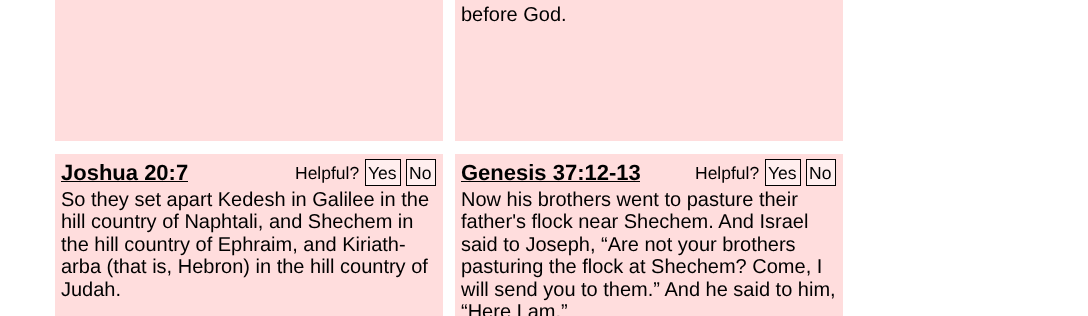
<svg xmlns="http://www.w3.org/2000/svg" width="1088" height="316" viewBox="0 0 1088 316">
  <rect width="100%" height="100%" fill="#ffffff"/>
  <rect x="55" y="0" width="388" height="141" fill="#ffdddd"/>
  <rect x="455" y="0" width="388" height="141" fill="#ffdddd"/>
  <text x="461" y="21" font-family="Liberation Sans" font-size="20" fill="#000000">before God.</text>
  <rect x="55" y="154" width="388" height="162" fill="#ffdddd"/>
  <text x="61" y="180" font-family="Liberation Sans" font-size="22" font-weight="bold" fill="#000000">Joshua 20:7</text>
  <rect x="61" y="181" width="127" height="1" fill="#000000"/>
  <text x="295" y="179" font-family="Liberation Sans" font-size="17.5" fill="#000000">Helpful?</text>
  <rect x="365.5" y="159.5" width="35" height="26" fill="#ffeeee" stroke="#000000"/>
  <text x="368" y="179" font-family="Liberation Sans" font-size="17.5" fill="#000000">Yes</text>
  <rect x="406.5" y="159.5" width="29" height="26" fill="#ffeeee" stroke="#000000"/>
  <text x="409" y="179" font-family="Liberation Sans" font-size="17.5" fill="#000000">No</text>
  <text x="61" y="206" font-family="Liberation Sans" font-size="20" fill="#000000">So they set apart Kedesh in Galilee in the</text>
  <text x="61" y="228" font-family="Liberation Sans" font-size="20" fill="#000000">hill country of Naphtali, and Shechem in</text>
  <text x="61" y="251" font-family="Liberation Sans" font-size="20" fill="#000000">the hill country of Ephraim, and Kiriath-</text>
  <text x="61" y="273" font-family="Liberation Sans" font-size="20" fill="#000000">arba (that is, Hebron) in the hill country of</text>
  <text x="61" y="296" font-family="Liberation Sans" font-size="20" fill="#000000">Judah.</text>
  <rect x="455" y="154" width="388" height="162" fill="#ffdddd"/>
  <text x="461" y="180" font-family="Liberation Sans" font-size="22" font-weight="bold" fill="#000000">Genesis 37:12-13</text>
  <rect x="461" y="181" width="179" height="1" fill="#000000"/>
  <text x="695" y="179" font-family="Liberation Sans" font-size="17.5" fill="#000000">Helpful?</text>
  <rect x="765.5" y="159.5" width="35" height="26" fill="#ffeeee" stroke="#000000"/>
  <text x="768" y="179" font-family="Liberation Sans" font-size="17.5" fill="#000000">Yes</text>
  <rect x="806.5" y="159.5" width="29" height="26" fill="#ffeeee" stroke="#000000"/>
  <text x="809" y="179" font-family="Liberation Sans" font-size="17.5" fill="#000000">No</text>
  <text x="461" y="206" font-family="Liberation Sans" font-size="20" fill="#000000">Now his brothers went to pasture their</text>
  <text x="461" y="228" font-family="Liberation Sans" font-size="20" fill="#000000">father's flock near Shechem. And Israel</text>
  <text x="461" y="251" font-family="Liberation Sans" font-size="20" fill="#000000">said to Joseph, “Are not your brothers</text>
  <text x="461" y="273" font-family="Liberation Sans" font-size="20" fill="#000000">pasturing the flock at Shechem? Come, I</text>
  <text x="461" y="296" font-family="Liberation Sans" font-size="20" fill="#000000">will send you to them.” And he said to him,</text>
  <text x="461" y="318" font-family="Liberation Sans" font-size="20" fill="#000000">“Here I am.”</text>
</svg>
